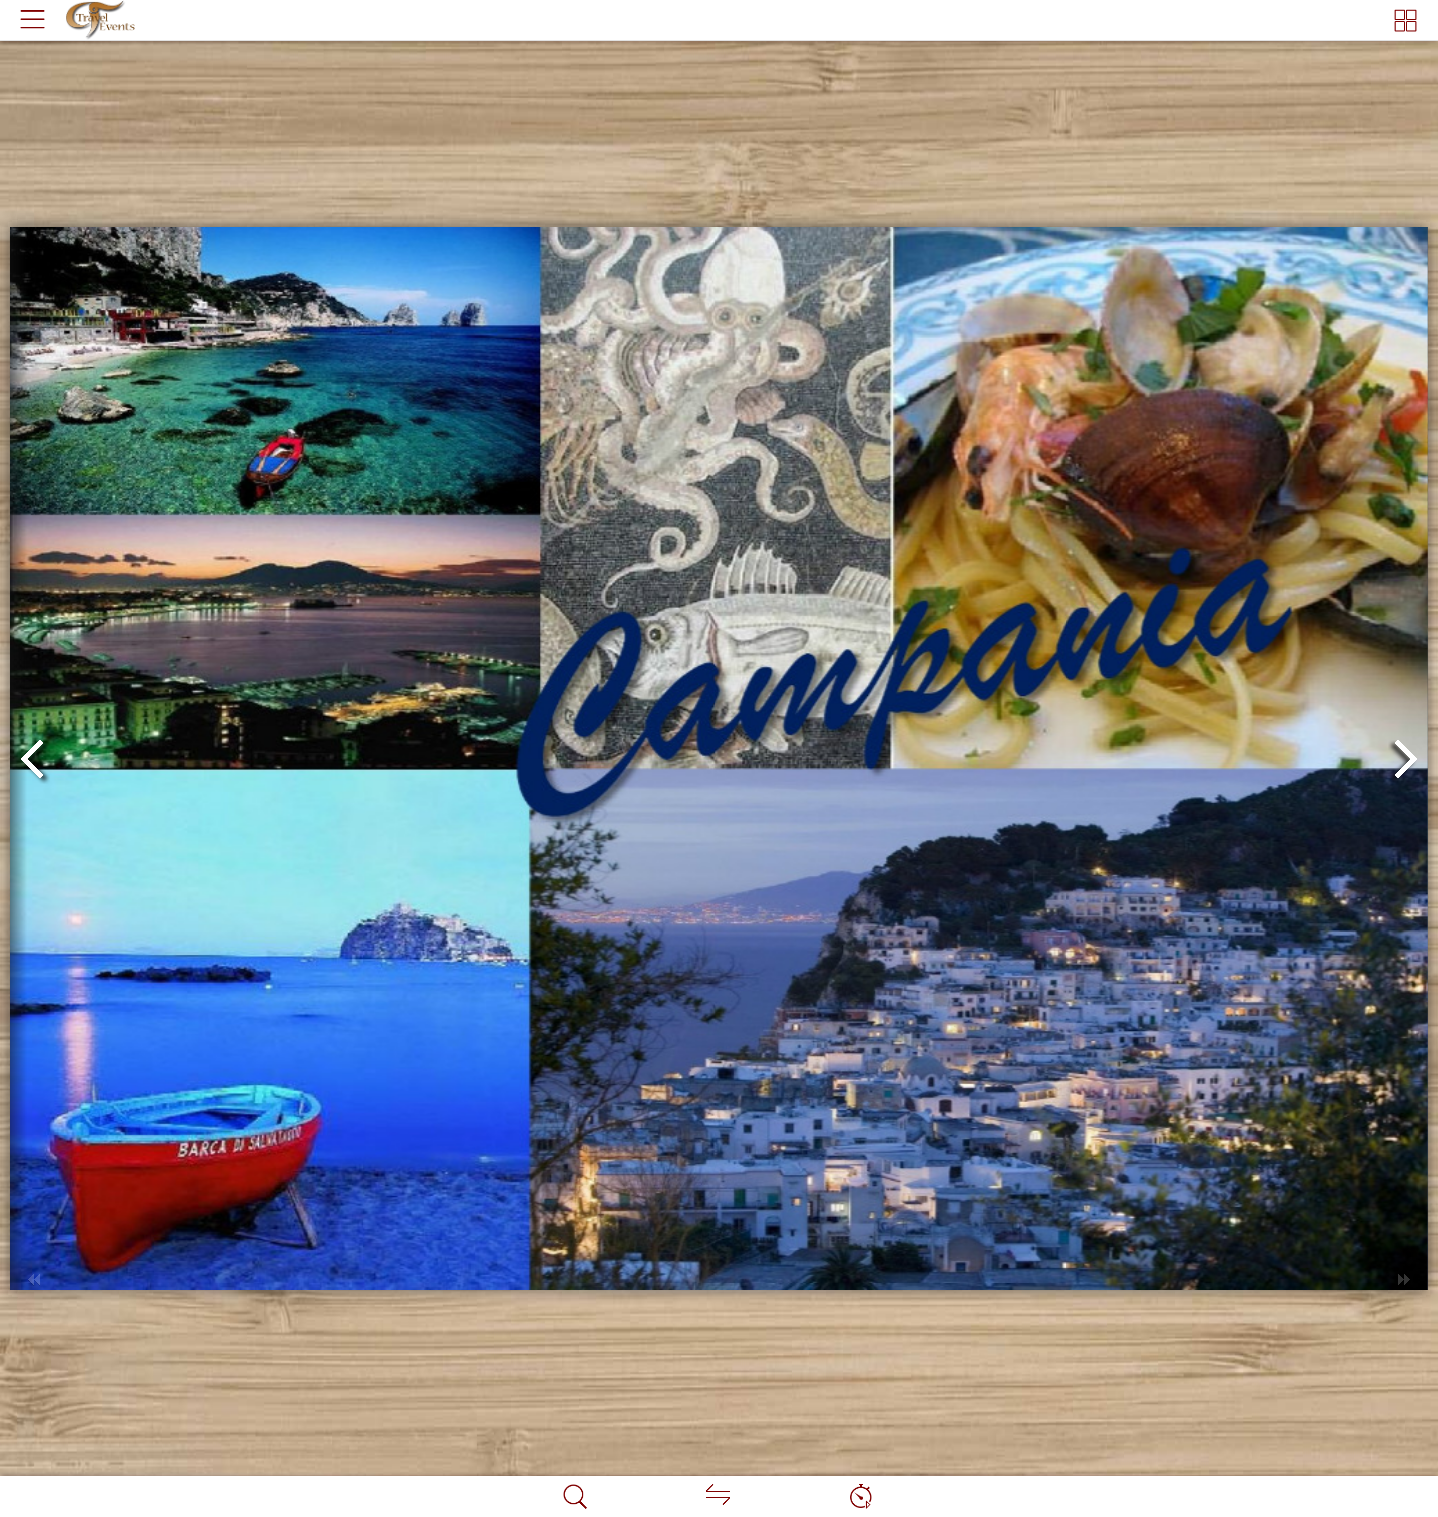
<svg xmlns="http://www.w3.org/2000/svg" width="1438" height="1517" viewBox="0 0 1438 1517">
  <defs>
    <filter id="blur1" x="-50%" y="-200%" width="200%" height="500%"><feGaussianBlur stdDeviation="2.5"/></filter>
    <filter id="blur2" x="-50%" y="-200%" width="200%" height="500%"><feGaussianBlur stdDeviation="7.5"/></filter>
  </defs>
  <rect width="100%" height="100%" fill="#ffffff"/>
  <image x="0" y="41" width="1438" height="1435" href="img4.png"/>
  <rect x="0" y="0" width="1438" height="41" fill="#280000" fill-opacity="0.5" filter="url(#blur1)"/>
  <rect x="0" y="0" width="1438" height="40" fill="#ffffff"/>
  <rect x="0" y="40" width="1438" height="1" fill="#e1e1e1"/>
  <image x="20" y="10" width="25" height="19" href="img1.png"/>
  <image x="66" y="0" width="69" height="40" href="img2.png"/>
  <image x="1394" y="9" width="23" height="23" href="img3.png"/>
  <rect x="10" y="227" width="1418" height="1063" fill="#282828" fill-opacity="0.7" filter="url(#blur2)"/>
  <image x="1427" y="227" width="1" height="1063" href="img6.png"/>
  <image x="1427" y="227" width="1" height="1063" href="img7.png"/>
  <image x="10" y="227" width="1418" height="1063" href="img5.png"/>
  <image x="21" y="740" width="29" height="44" href="img8.png"/>
  <image x="1388" y="740" width="29" height="43" href="img9.png"/>
  <image x="28" y="1274" width="12" height="12" href="img10.png"/>
  <image x="1398" y="1274" width="12" height="11" href="img11.png"/>
  <rect x="0" y="1476" width="1438" height="41" fill="#280000" fill-opacity="0.5" filter="url(#blur1)"/>
  <rect x="0" y="1476" width="1438" height="41" fill="#ffffff"/>
  <image x="563" y="1484" width="24" height="25" href="img12.png"/>
  <image x="706" y="1484" width="24" height="21" href="img13.png"/>
  <image x="850" y="1484" width="22" height="25" href="img14.png"/>
</svg>
